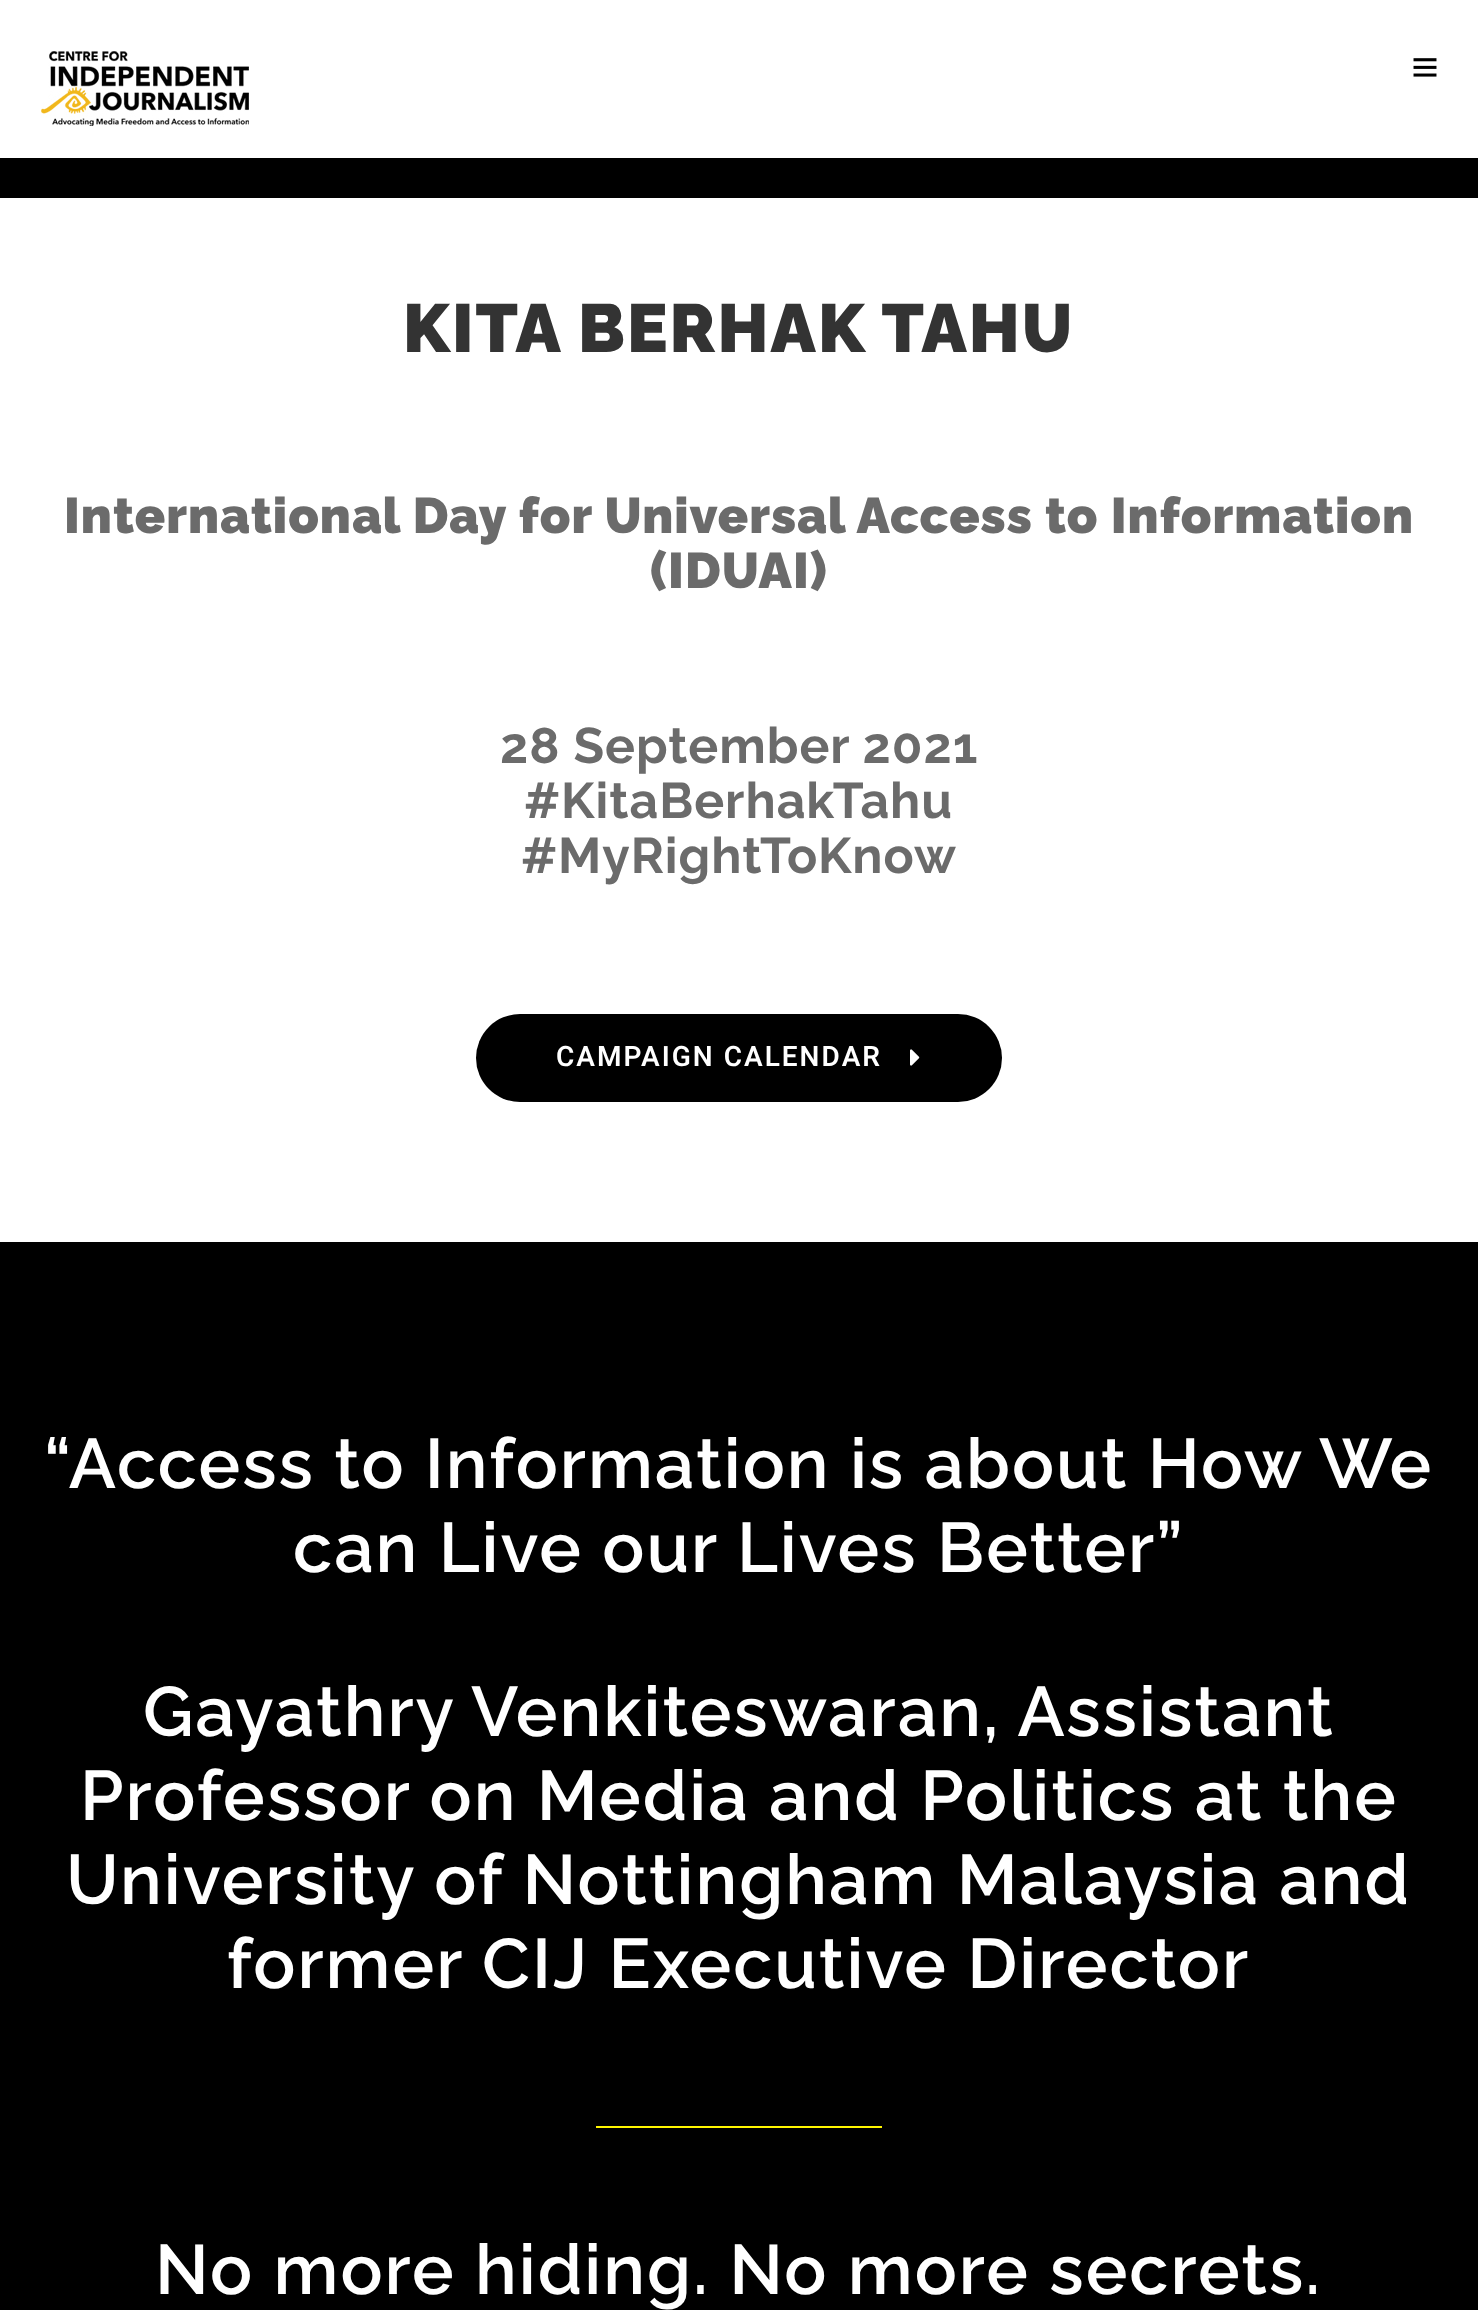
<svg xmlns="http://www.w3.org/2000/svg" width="1478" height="2310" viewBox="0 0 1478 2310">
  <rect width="100%" height="100%" fill="#ffffff"/>
  <image x="41" y="51" width="208" height="75" href="img1.png"/>
  <image x="1413" y="58" width="24" height="19" href="img2.png"/>
  <image x="0" y="158" width="1478" height="1124" href="img3.png"/>
  <rect x="0" y="198" width="1478" height="1044" fill="#ffffff"/>
  <text x="403" y="352" font-family="Raleway" font-size="68" font-weight="900" letter-spacing="2" fill="#333333">KITA BERHAK TAHU</text>
  <text x="64" y="533" font-family="Raleway" font-size="50" font-weight="900" letter-spacing="1" fill="#6b6b6b">International Day for Universal Access to Information</text>
  <text x="650" y="588" font-family="Raleway" font-size="50" font-weight="900" letter-spacing="1" fill="#6b6b6b">(IDUAI)</text>
  <text x="500" y="763" font-family="Raleway" font-size="50" font-weight="bold" letter-spacing="1" fill="#6b6b6b">28 September 2021</text>
  <text x="524" y="818" font-family="Raleway" font-size="50" font-weight="bold" letter-spacing="1" fill="#6b6b6b">#KitaBerhakTahu</text>
  <text x="521" y="873" font-family="Raleway" font-size="50" font-weight="bold" letter-spacing="1" fill="#6b6b6b">#MyRightToKnow</text>
  <rect x="476" y="1014" width="526" height="88" rx="44" fill="#000000"/>
  <text x="556" y="1066" font-family="Heebo" font-size="28" font-weight="600" letter-spacing="2" fill="#ffffff">CAMPAIGN CALENDAR</text>
  <image x="910" y="1049" width="10" height="17" href="img4.png"/>
  <rect x="0" y="1282" width="1478" height="1028" fill="#000000"/>
  <text x="44" y="1488" font-family="Raleway" font-size="70" font-weight="600" letter-spacing="2" fill="#ffffff">“Access to Information is about How We</text>
  <text x="293" y="1572" font-family="Raleway" font-size="70" font-weight="600" letter-spacing="2" fill="#ffffff">can Live our Lives Better”</text>
  <text x="143" y="1736" font-family="Raleway" font-size="70" font-weight="600" letter-spacing="2" fill="#ffffff">Gayathry Venkiteswaran, Assistant</text>
  <text x="80" y="1820" font-family="Raleway" font-size="70" font-weight="600" letter-spacing="2" fill="#ffffff">Professor on Media and Politics at the</text>
  <text x="66" y="1904" font-family="Raleway" font-size="70" font-weight="600" letter-spacing="2" fill="#ffffff">University of Nottingham Malaysia and</text>
  <text x="227" y="1988" font-family="Raleway" font-size="70" font-weight="600" letter-spacing="2" fill="#ffffff">former CIJ Executive Director</text>
  <rect x="596" y="2126" width="286" height="2" fill="#fff600"/>
  <text x="155" y="2294" font-family="Raleway" font-size="70" font-weight="600" letter-spacing="2" fill="#ffffff">No more hiding. No more secrets.</text>
</svg>
